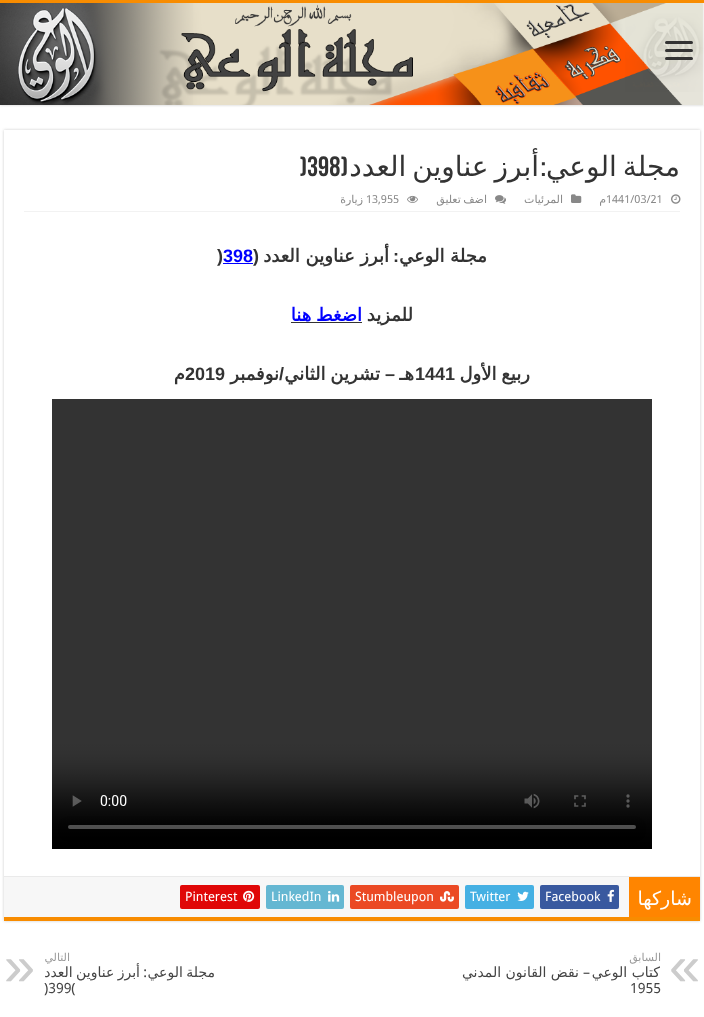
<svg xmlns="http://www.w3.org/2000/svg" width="704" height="1017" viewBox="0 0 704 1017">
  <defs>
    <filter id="blur1" x="-50%" y="-200%" width="200%" height="500%"><feGaussianBlur stdDeviation="1.5"/></filter>
    <clipPath id="clip1"><path d="M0 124H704V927H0ZM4 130H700V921H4Z" clip-rule="evenodd"/></clipPath>
  </defs>
  <rect width="100%" height="100%" fill="#ffffff"/>
  <rect x="0" y="0" width="704" height="105" fill="#cacaca" filter="url(#blur1)"/>
  <rect x="0" y="0" width="704" height="3" fill="#f88c00"/>
  <image x="0" y="3" width="704" height="102" href="img1.png"/>
  <rect x="665" y="41" width="28" height="3" rx="1.5" fill="#333333"/>
  <rect x="665" y="49" width="28" height="3" rx="1.5" fill="#333333"/>
  <rect x="665" y="57" width="28" height="3" rx="1.5" fill="#333333"/>
  <g clip-path="url(#clip1)">
    <rect x="4" y="130" width="696" height="791" fill="#cacaca" filter="url(#blur1)"/>
  </g>
  <rect x="4" y="917" width="696" height="4" fill="#f88c00"/>
  <text x="680" y="176" word-spacing="-3" font-family="DejaVu Sans" font-size="28" direction="rtl" fill="#333333">مجلة الوعي</text>
  <text x="539" y="176" word-spacing="-3" font-family="DejaVu Sans" font-size="28" direction="rtl" fill="#333333">أبرز عناوين العدد</text>
  <text x="348" y="176" font-family="Bebas Neue" font-size="28" font-weight="bold" direction="rtl" fill="#333333">(</text>
  <text x="300" y="176" font-family="Bebas Neue" font-size="28" font-weight="bold" fill="#333333">)398</text>
  <text x="546" y="176" font-family="Bebas Neue" font-size="28" font-weight="bold" direction="rtl" fill="#333333">:</text>
  <rect x="24" y="211" width="656" height="1" fill="#f2f2f2"/>
  <image x="671" y="194" width="10" height="10" href="img2.png"/>
  <text x="606" y="203" font-family="Droid Sans" font-size="11" fill="#888888">1441/03/21</text>
  <text x="606" y="203" font-family="DejaVu Sans" font-size="11" direction="rtl" fill="#888888">م</text>
  <image x="571" y="194" width="11" height="9" href="img3.png"/>
  <text x="563" y="203" font-family="DejaVu Sans" font-size="11" direction="rtl" fill="#888888">المرئيات</text>
  <image x="495" y="195" width="11" height="9" href="img4.png"/>
  <text x="487" y="203" word-spacing="-1" font-family="DejaVu Sans" font-size="11" direction="rtl" fill="#888888">اضف تعليق</text>
  <image x="407" y="195" width="11" height="8" href="img5.png"/>
  <text x="366" y="203" font-family="Droid Sans" font-size="11" fill="#888888">13,955</text>
  <text x="363" y="203" font-family="DejaVu Sans" font-size="11" direction="rtl" fill="#888888">زيارة</text>
  <text x="487" y="262" font-family="DejaVu Sans" font-size="18" font-weight="bold" direction="rtl" fill="#333333">مجلة الوعي</text>
  <text x="399" y="262" font-family="Liberation Sans" font-size="18" font-weight="bold" direction="rtl" fill="#333333">:</text>
  <text x="389" y="262" font-family="DejaVu Sans" font-size="18" font-weight="bold" direction="rtl" fill="#333333">أبرز عناوين العدد</text>
  <text x="259" y="262" font-family="Liberation Sans" font-size="18" font-weight="bold" direction="rtl" fill="#333333">(</text>
  <text x="223" y="262" font-family="Liberation Sans" font-size="18" font-weight="bold" fill="#0000ff">398</text>
  <text x="217" y="262" font-family="Liberation Sans" font-size="18" font-weight="bold" fill="#333333">)</text>
  <rect x="223" y="263" width="30" height="1" fill="#0000ff"/>
  <text x="413" y="321" font-family="DejaVu Sans" font-size="18" font-weight="bold" direction="rtl" fill="#333333">للمزيد</text>
  <text x="362" y="321" word-spacing="-1" font-family="DejaVu Sans" font-size="18" font-weight="bold" direction="rtl" fill="#0000ff">اضغط هنا</text>
  <rect x="291" y="322" width="71" height="1" fill="#333333"/>
  <text x="530" y="380" word-spacing="-1" font-family="DejaVu Sans" font-size="18" font-weight="bold" direction="rtl" fill="#333333">ربيع الأول</text>
  <text x="415" y="380" font-family="Liberation Sans" font-size="18" font-weight="bold" fill="#333333">1441</text>
  <text x="414" y="380" font-family="DejaVu Sans" font-size="18" font-weight="bold" direction="rtl" fill="#333333">هـ</text>
  <text x="395" y="380" font-family="Liberation Sans" font-size="18" font-weight="bold" direction="rtl" fill="#333333">–</text>
  <text x="380" y="380" word-spacing="-1" font-family="DejaVu Sans" font-size="18" font-weight="bold" direction="rtl" fill="#333333">تشرين الثاني</text>
  <text x="284" y="380" font-family="Liberation Sans" font-size="18" font-weight="bold" direction="rtl" fill="#333333">/</text>
  <text x="279" y="380" font-family="DejaVu Sans" font-size="18" font-weight="bold" direction="rtl" fill="#333333">نوفمبر</text>
  <text x="185" y="380" font-family="Liberation Sans" font-size="18" font-weight="bold" fill="#333333">2019</text>
  <text x="185" y="380" font-family="DejaVu Sans" font-size="18" font-weight="bold" direction="rtl" fill="#333333">م</text>
  <image x="52" y="399" width="600" height="450" href="img6.png"/>
  <rect x="4" y="877" width="625" height="40" fill="#f7f7f7"/>
  <rect x="4" y="876" width="696" height="1" fill="#eaeaea"/>
  <rect x="629" y="877" width="71" height="40" fill="#ff8500"/>
  <text x="692" y="905" font-family="DejaVu Sans" font-size="19" direction="rtl" fill="#ffffff">شاركها</text>
  <rect x="540" y="885" width="79" height="24" rx="2" fill="#39599f"/>
  <image x="607" y="889" width="7" height="13" href="img7.png"/>
  <text x="545" y="901" font-family="Droid Sans" font-size="13" fill="#ffffff">Facebook</text>
  <rect x="465" y="885" width="69" height="24" rx="2" fill="#45b0e3"/>
  <image x="517" y="891" width="12" height="10" href="img8.png"/>
  <text x="470" y="901" font-family="Droid Sans" font-size="13" fill="#ffffff">Twitter</text>
  <rect x="350" y="885" width="109" height="24" rx="2" fill="#eb4924"/>
  <image x="440" y="891" width="14" height="11" href="img9.png"/>
  <text x="355" y="901" font-family="Droid Sans" font-size="13" fill="#ffffff">Stumbleupon</text>
  <rect x="266" y="885" width="78" height="24" rx="2" fill="#65b7d2"/>
  <image x="328" y="890" width="12" height="12" href="img10.png"/>
  <text x="271" y="901" font-family="Droid Sans" font-size="13" fill="#ffffff">LinkedIn</text>
  <rect x="180" y="885" width="80" height="24" rx="2" fill="#e00707"/>
  <image x="243" y="890" width="12" height="12" href="img11.png"/>
  <text x="185" y="901" font-family="Droid Sans" font-size="13" fill="#ffffff">Pinterest</text>
  <text x="669" y="985" font-family="Liberation Sans" font-size="56" fill="#cccccc">«</text>
  <text x="661" y="961" font-family="DejaVu Sans" font-size="11" direction="rtl" fill="#999999">السابق</text>
  <text x="579" y="977" font-family="DejaVu Sans" font-size="14" direction="rtl" fill="#444444">نقض القانون المدني</text>
  <text x="660" y="977" font-family="DejaVu Sans" font-size="14" direction="rtl" fill="#444444">كتاب الوعي</text>
  <text x="590" y="977" font-family="Droid Sans" font-size="14" direction="rtl" fill="#444444">–</text>
  <text x="630" y="993" font-family="Droid Sans" font-size="14" fill="#444444">1955</text>
  <text x="70" y="961" font-family="DejaVu Sans" font-size="11" direction="rtl" fill="#999999">التالي</text>
  <text x="4" y="985" font-family="Liberation Sans" font-size="56" fill="#cccccc">»</text>
  <text x="215" y="977" word-spacing="-1" font-family="DejaVu Sans" font-size="14" direction="rtl" fill="#444444">مجلة الوعي</text>
  <text x="147" y="977" font-family="Droid Sans" font-size="14" direction="rtl" fill="#444444">:</text>
  <text x="140" y="977" word-spacing="-1" font-family="DejaVu Sans" font-size="14" direction="rtl" fill="#444444">أبرز عناوين العدد</text>
  <text x="44" y="993" font-family="Droid Sans" font-size="14" fill="#444444">)399(</text>
</svg>
